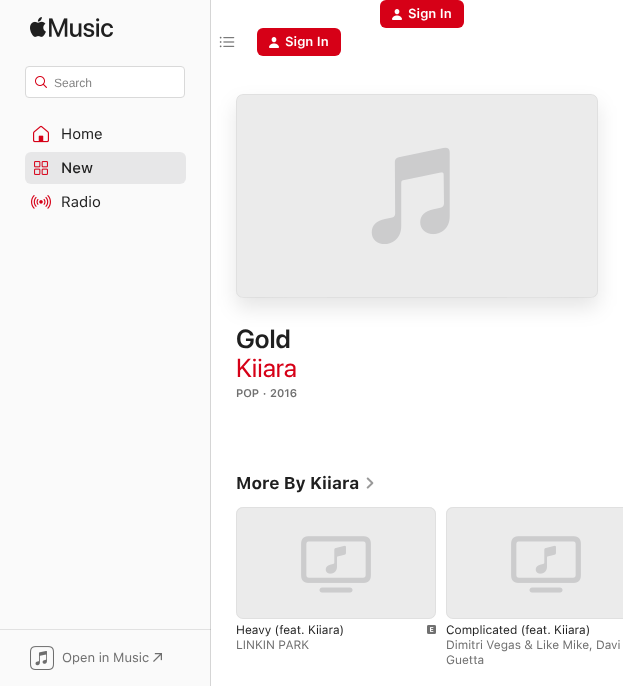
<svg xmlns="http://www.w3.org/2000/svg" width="623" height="686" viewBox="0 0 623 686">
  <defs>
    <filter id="blur1" x="-50%" y="-200%" width="200%" height="500%"><feGaussianBlur stdDeviation="10"/></filter>
    <clipPath id="clip1"><rect x="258" y="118" width="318" height="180"/></clipPath>
    <filter id="blur2" x="-50%" y="-200%" width="200%" height="500%"><feGaussianBlur stdDeviation="20"/></filter>
    <clipPath id="clip2"><rect x="236" y="94" width="362" height="204" rx="7"/></clipPath>
  </defs>
  <rect width="100%" height="100%" fill="#ffffff"/>
  <rect x="380" y="0" width="84" height="28" rx="6" fill="#d60017"/>
  <image x="392" y="9" width="10" height="11" href="img1.png"/>
  <text x="408" y="18" font-family="'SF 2'" font-size="13" font-weight="600" fill="#ffffff">Sign In</text>
  <image x="219" y="36" width="16" height="12" href="img2.png"/>
  <rect x="257" y="28" width="84" height="28" rx="6" fill="#d60017"/>
  <image x="269" y="37" width="10" height="11" href="img1.png"/>
  <text x="285" y="46" font-family="'SF 2'" font-size="13" font-weight="600" fill="#ffffff">Sign In</text>
  <rect x="236" y="104" width="362" height="204" rx="7" fill="#000000" fill-opacity="0.1" filter="url(#blur1)"/>
  <g clip-path="url(#clip1)">
    <rect x="258" y="118" width="318" height="180" fill="#f7f7f7" filter="url(#blur2)"/>
  </g>
  <rect x="0" y="0" width="210" height="686" fill="#fafafa"/>
  <rect x="0" y="629" width="211" height="1" fill="#e1e1e1"/>
  <rect x="210" y="0" width="1" height="686" fill="#d5d5d5"/>
  <rect x="210" y="629" width="1" height="1" fill="#c0c0c0"/>
  <image x="30" y="17" width="83" height="20" href="img3.png"/>
  <rect x="25.5" y="66.5" width="159" height="31" rx="3.5" fill="#ffffff" stroke="#d9d9d9"/>
  <image x="35" y="76" width="12" height="12" href="img4.png"/>
  <text x="54" y="87" font-family="Liberation Sans" font-size="12" fill="#858585">Search</text>
  <image x="33" y="125" width="16" height="18" href="img5.png"/>
  <text x="61" y="139" font-family="'SF 2'" font-size="15" fill="#1f1f1f">Home</text>
  <rect x="25" y="152" width="161" height="32" rx="6" fill="#e7e7e8"/>
  <image x="34" y="161" width="14" height="14" href="img6.png"/>
  <text x="61" y="173" font-family="SF" font-size="15" font-weight="500" fill="#1f1f1f">New</text>
  <image x="31" y="195" width="20" height="14" href="img7.png"/>
  <text x="61" y="207" font-family="'SF 2'" font-size="15" fill="#1f1f1f">Radio</text>
  <image x="30" y="646" width="24" height="24" href="img8.png"/>
  <text x="62" y="662" font-family="'SF 2'" font-size="13" fill="#707070">Open in Music</text>
  <image x="153" y="653" width="9" height="9" href="img9.png"/>
  <image x="327" y="297" width="180" height="1" href="img10.png"/>
  <rect x="258.45" y="118.45" width="317.1" height="179.1" fill="none" stroke="#cccccc" stroke-opacity="0.1" stroke-width="0.9"/>
  <g clip-path="url(#clip2)">
    <path d="M243 94H591C595 94 598 97 598 101V297H236V101C236 97 239 94 243 94Z" fill="#ebebeb"/>
  </g>
  <image x="371" y="147" width="79" height="97" href="img11.png"/>
  <rect x="236.5" y="94.5" width="361" height="203" rx="6.5" fill="none" stroke="#808080" stroke-opacity="0.1"/>
  <text x="236" y="348" font-family="SF" font-size="26" font-weight="600" fill="#1f1f1f">Gold</text>
  <text x="236" y="377" font-family="SF" font-size="26" fill="#d60017">Kiiara</text>
  <text x="236" y="397" font-family="'SF 2'" font-size="11" font-weight="600" fill="#707070">POP · 2016</text>
  <text x="236" y="489" font-family="SF" font-size="17" font-weight="bold" fill="#1f1f1f">More By Kiiara</text>
  <image x="366" y="477" width="8" height="12" href="img12.png"/>
  <rect x="236" y="507" width="200" height="112" rx="7" fill="#ebebeb"/>
  <image x="236" y="507" width="200" height="86" href="img13.png"/>
  <rect x="236.5" y="507.5" width="199" height="111" rx="6.5" fill="none" stroke="#808080" stroke-opacity="0.1"/>
  <text x="236" y="634" font-family="'SF 2'" font-size="12" fill="#1f1f1f">Heavy (feat. Kiiara)</text>
  <image x="427" y="625" width="9" height="9" href="img14.png"/>
  <text x="236" y="649" font-family="'SF 2'" font-size="12" fill="#707070">LINKIN PARK</text>
  <path d="M453 507H623V619H453C449 619 446 616 446 612V514C446 510 449 507 453 507Z" fill="#ebebeb"/>
  <image x="446" y="507" width="135" height="86" href="img15.png"/>
  <rect x="446.5" y="507.5" width="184" height="111" rx="6.5" fill="none" stroke="#808080" stroke-opacity="0.1"/>
  <text x="446" y="634" font-family="'SF 2'" font-size="12" fill="#1f1f1f">Complicated (feat. Kiiara)</text>
  <text x="446" y="649" font-family="'SF 2'" font-size="12" fill="#707070">Dimitri Vegas &amp; Like Mike, Davi</text>
  <text x="446" y="664" font-family="'SF 2'" font-size="12" fill="#707070">Guetta</text>
</svg>
